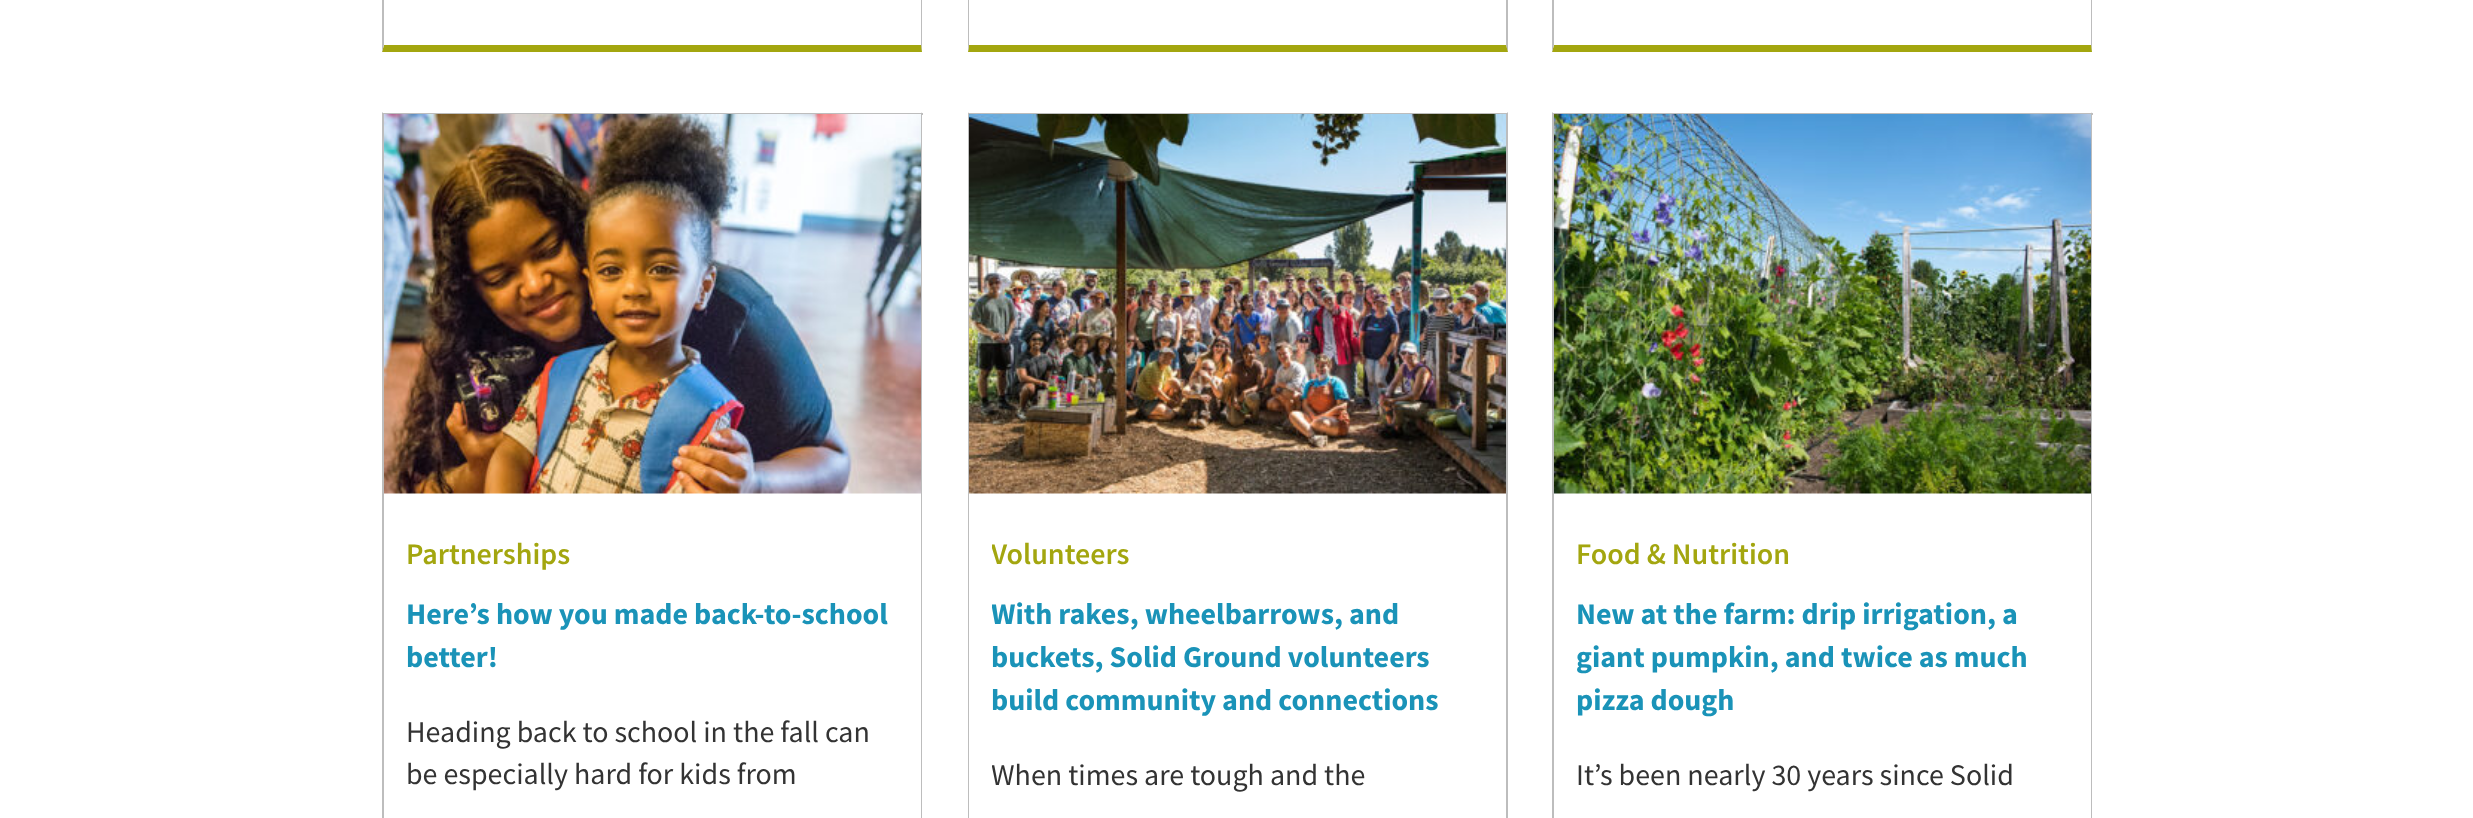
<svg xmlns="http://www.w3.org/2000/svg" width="2473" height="818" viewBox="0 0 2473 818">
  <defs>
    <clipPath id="clip1"><rect x="992" y="519" width="492" height="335"/></clipPath>
  </defs>
  <rect width="100%" height="100%" fill="#ffffff"/>
  <path d="M922-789V52L921 45V-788Z" fill="#bdbdbd"/>
  <path d="M922 52H382L384 45H921Z" fill="#a3a60f"/>
  <path d="M382 52V-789L384-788V45Z" fill="#bdbdbd"/>
  <path d="M1508-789V52L1506 45V-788Z" fill="#bdbdbd"/>
  <path d="M1508 52H968L969 45H1506Z" fill="#a3a60f"/>
  <path d="M968 52V-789L969-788V45Z" fill="#bdbdbd"/>
  <path d="M2092-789V52L2091 45V-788Z" fill="#bdbdbd"/>
  <path d="M2092 52H1552L1554 45H2091Z" fill="#a3a60f"/>
  <path d="M1552 52V-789L1554-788V45Z" fill="#bdbdbd"/>
  <rect x="383" y="113" width="540" height="2" fill="#bdbdbd"/>
  <path d="M922 112V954L921 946V114Z" fill="#bdbdbd"/>
  <path d="M382 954V112L384 114V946Z" fill="#bdbdbd"/>
  <image x="384" y="114" width="537" height="380" href="img1.png"/>
  <text x="406" y="564" font-family="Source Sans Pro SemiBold" font-size="30" font-weight="600" fill="#a3a60f">Partnerships</text>
  <text x="406" y="624" font-family="Source Sans Pro" font-size="30" font-weight="bold" fill="#1a93b8">Here’s how you made back-to-school</text>
  <text x="406" y="667" font-family="Source Sans Pro" font-size="30" font-weight="bold" fill="#1a93b8">better!</text>
  <text x="406" y="742" font-family="Source Sans Pro" font-size="30" fill="#333333">Heading back to school in the fall can</text>
  <text x="406" y="784" font-family="Source Sans Pro" font-size="30" fill="#333333">be especially hard for kids from</text>
  <rect x="968" y="113" width="540" height="1" fill="#bdbdbd"/>
  <path d="M1508 112V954L1506 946V114Z" fill="#bdbdbd"/>
  <path d="M968 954V112L969 114V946Z" fill="#bdbdbd"/>
  <image x="969" y="114" width="537" height="380" href="img2.png"/>
  <g clip-path="url(#clip1)">
    <text x="991" y="564" font-family="Source Sans Pro SemiBold" font-size="30" font-weight="600" fill="#a3a60f">Volunteers</text>
    <text x="991" y="624" font-family="Source Sans Pro" font-size="30" font-weight="bold" fill="#1a93b8">With rakes, wheelbarrows, and</text>
  </g>
  <text x="991" y="667" font-family="Source Sans Pro" font-size="30" font-weight="bold" fill="#1a93b8">buckets, Solid Ground volunteers</text>
  <text x="991" y="710" font-family="Source Sans Pro" font-size="30" font-weight="bold" fill="#1a93b8">build community and connections</text>
  <g clip-path="url(#clip1)">
    <text x="991" y="785" font-family="Source Sans Pro" font-size="30" fill="#333333">When times are tough and the</text>
  </g>
  <rect x="1553" y="113" width="540" height="2" fill="#bdbdbd"/>
  <path d="M2092 112V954L2091 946V114Z" fill="#bdbdbd"/>
  <path d="M1552 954V112L1554 114V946Z" fill="#bdbdbd"/>
  <image x="1554" y="114" width="537" height="380" href="img3.png"/>
  <text x="1576" y="564" font-family="Source Sans Pro SemiBold" font-size="30" font-weight="600" fill="#a3a60f">Food &amp; Nutrition</text>
  <text x="1576" y="624" font-family="Source Sans Pro" font-size="30" font-weight="bold" fill="#1a93b8">New at the farm: drip irrigation, a</text>
  <text x="1576" y="667" font-family="Source Sans Pro" font-size="30" font-weight="bold" fill="#1a93b8">giant pumpkin, and twice as much</text>
  <text x="1576" y="710" font-family="Source Sans Pro" font-size="30" font-weight="bold" fill="#1a93b8">pizza dough</text>
  <text x="1576" y="785" font-family="Source Sans Pro" font-size="30" fill="#333333">It’s been nearly 30 years since Solid</text>
</svg>
